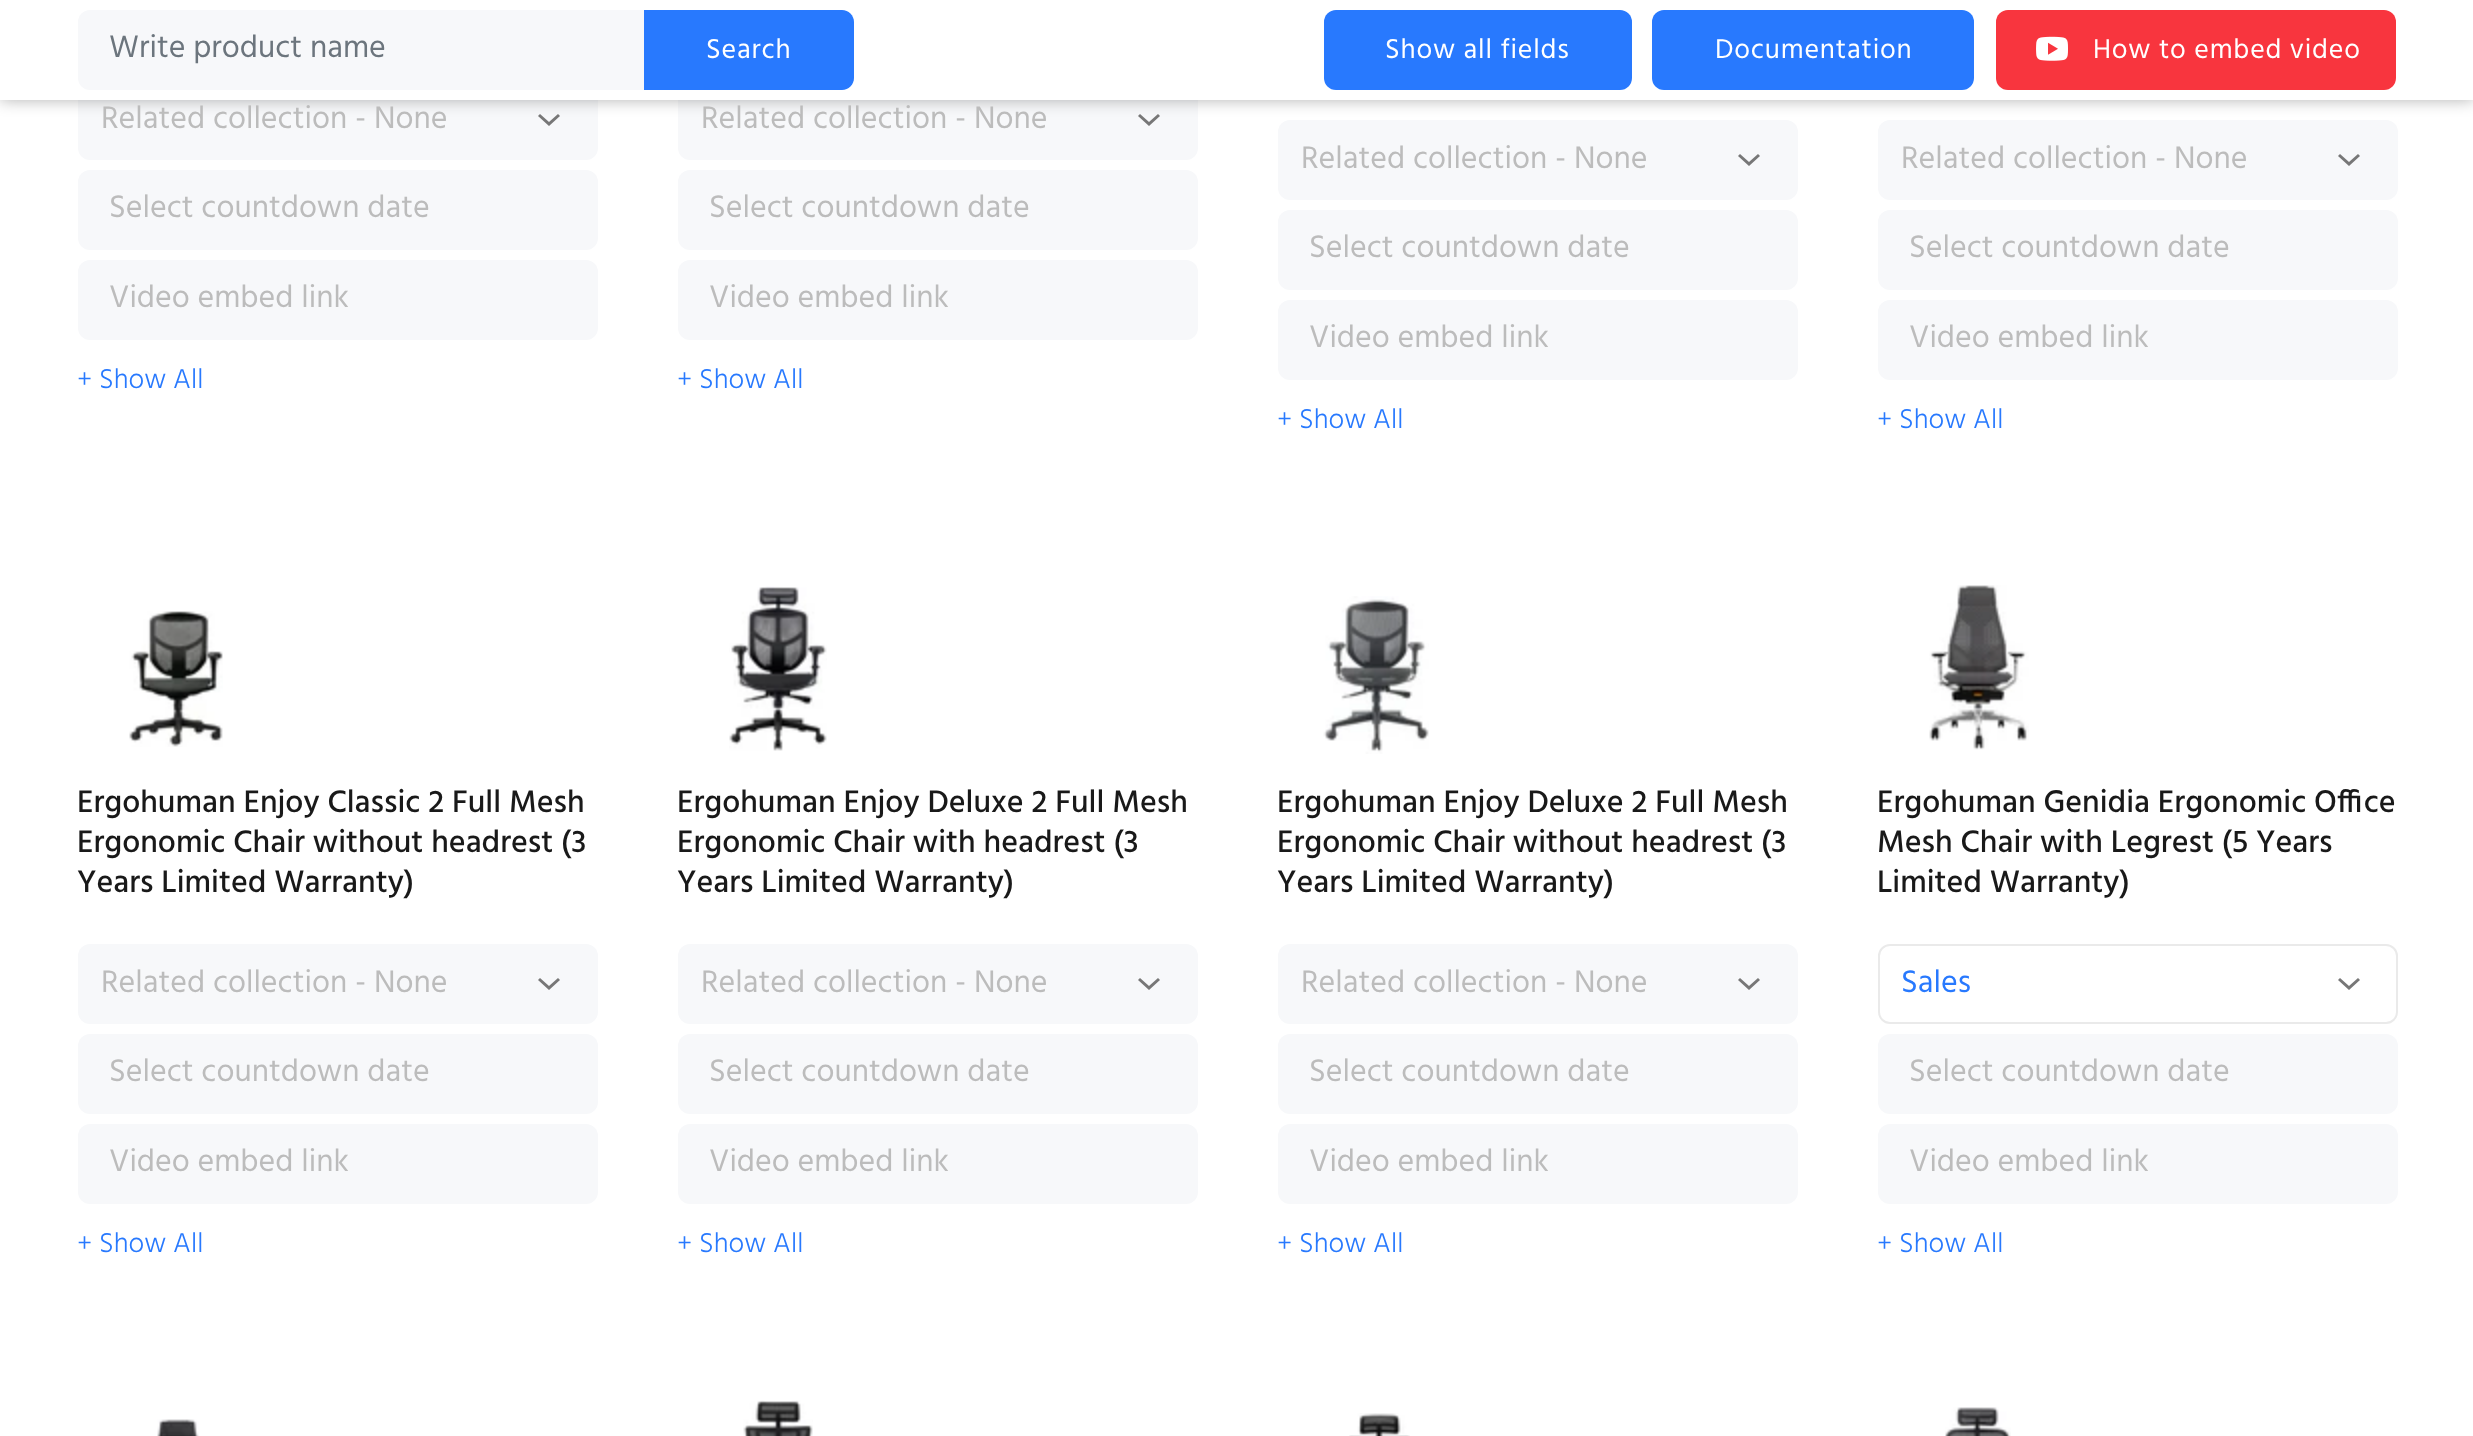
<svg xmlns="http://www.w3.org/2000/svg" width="2473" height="1436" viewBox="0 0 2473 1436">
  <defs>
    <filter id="blur1" x="-50%" y="-200%" width="200%" height="500%"><feGaussianBlur stdDeviation="8"/></filter>
  </defs>
  <rect width="100%" height="100%" fill="#ffffff"/>
  <rect x="78" y="80" width="520" height="80" rx="12" fill="#f7f8fa"/>
  <path d="M549 126L538 116L540 114L549 122L558 114L560 116Z" fill="#777777"/>
  <rect x="678" y="80" width="520" height="80" rx="12" fill="#f7f8fa"/>
  <path d="M1149 126L1138 116L1140 114L1149 122L1158 114L1160 116Z" fill="#777777"/>
  <rect x="1278" y="120" width="520" height="80" rx="12" fill="#f7f8fa"/>
  <rect x="1878" y="120" width="520" height="80" rx="12" fill="#f7f8fa"/>
  <rect x="0" y="0" width="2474" height="100" fill="#000000" fill-opacity="0.3" filter="url(#blur1)"/>
  <rect x="0" y="0" width="2473" height="100" fill="#ffffff"/>
  <rect x="78" y="10" width="600" height="80" rx="12" fill="#f7f8fa"/>
  <text x="109" y="57" font-family="Hind" font-size="32" fill="#6c757d">Write product name</text>
  <path d="M644 10H842C848.5 10 854 15.5 854 22V78C854 84.5 848.5 90 842 90H644Z" fill="#2879fe"/>
  <text x="706" y="58" font-family="Hind" font-size="28" letter-spacing="0.8" fill="#ffffff">Search</text>
  <rect x="1324" y="10" width="308" height="80" rx="12" fill="#2879fe"/>
  <text x="1385" y="58" font-family="Hind" font-size="28" letter-spacing="0.8" fill="#ffffff">Show all fields</text>
  <rect x="1652" y="10" width="322" height="80" rx="12" fill="#2879fe"/>
  <text x="1715" y="58" font-family="Hind" font-size="28" letter-spacing="0.8" fill="#ffffff">Documentation</text>
  <rect x="1996" y="10" width="400" height="80" rx="12" fill="#f8353e"/>
  <image x="2036" y="36" width="32" height="25" href="img1.png"/>
  <text x="2093" y="58" font-family="Hind" font-size="28" letter-spacing="0.8" fill="#ffffff">How to embed video</text>
  <text x="101" y="128" font-family="Hind" font-size="32" fill="#bcbcbc">Related collection - None</text>
  <rect x="78" y="170" width="520" height="80" rx="12" fill="#f7f8fa"/>
  <text x="109" y="217" font-family="Hind" font-size="32" fill="#bcbcbc">Select countdown date</text>
  <rect x="78" y="260" width="520" height="80" rx="12" fill="#f7f8fa"/>
  <text x="109" y="307" font-family="Hind" font-size="32" fill="#bcbcbc">Video embed link</text>
  <text x="77" y="388" font-family="Hind" font-size="28" font-weight="300" fill="#2879fe">+ Show All</text>
  <text x="701" y="128" font-family="Hind" font-size="32" fill="#bcbcbc">Related collection - None</text>
  <rect x="678" y="170" width="520" height="80" rx="12" fill="#f7f8fa"/>
  <text x="709" y="217" font-family="Hind" font-size="32" fill="#bcbcbc">Select countdown date</text>
  <rect x="678" y="260" width="520" height="80" rx="12" fill="#f7f8fa"/>
  <text x="709" y="307" font-family="Hind" font-size="32" fill="#bcbcbc">Video embed link</text>
  <text x="677" y="388" font-family="Hind" font-size="28" font-weight="300" fill="#2879fe">+ Show All</text>
  <path d="M1749 166L1738 156L1740 154L1749 162L1758 154L1760 156Z" fill="#777777"/>
  <text x="1301" y="168" font-family="Hind" font-size="32" fill="#bcbcbc">Related collection - None</text>
  <rect x="1278" y="210" width="520" height="80" rx="12" fill="#f7f8fa"/>
  <text x="1309" y="257" font-family="Hind" font-size="32" fill="#bcbcbc">Select countdown date</text>
  <rect x="1278" y="300" width="520" height="80" rx="12" fill="#f7f8fa"/>
  <text x="1309" y="347" font-family="Hind" font-size="32" fill="#bcbcbc">Video embed link</text>
  <text x="1277" y="428" font-family="Hind" font-size="28" font-weight="300" fill="#2879fe">+ Show All</text>
  <path d="M2349 166L2338 156L2340 154L2349 162L2358 154L2360 156Z" fill="#777777"/>
  <text x="1901" y="168" font-family="Hind" font-size="32" fill="#bcbcbc">Related collection - None</text>
  <rect x="1878" y="210" width="520" height="80" rx="12" fill="#f7f8fa"/>
  <text x="1909" y="257" font-family="Hind" font-size="32" fill="#bcbcbc">Select countdown date</text>
  <rect x="1878" y="300" width="520" height="80" rx="12" fill="#f7f8fa"/>
  <text x="1909" y="347" font-family="Hind" font-size="32" fill="#bcbcbc">Video embed link</text>
  <text x="1877" y="428" font-family="Hind" font-size="28" font-weight="300" fill="#2879fe">+ Show All</text>
  <image x="129" y="611" width="94" height="136" href="img2.png"/>
  <text x="77" y="812" font-family="Hind" font-size="32" font-weight="500" fill="#191919">Ergohuman Enjoy Classic 2 Full Mesh</text>
  <text x="77" y="852" font-family="Hind" font-size="32" font-weight="500" fill="#191919">Ergonomic Chair without headrest (3</text>
  <text x="77" y="892" font-family="Hind" font-size="32" font-weight="500" fill="#191919">Years Limited Warranty)</text>
  <rect x="78" y="944" width="520" height="80" rx="12" fill="#f7f8fa"/>
  <path d="M549 990L538 980L540 978L549 986L558 978L560 980Z" fill="#777777"/>
  <text x="101" y="992" font-family="Hind" font-size="32" fill="#bcbcbc">Related collection - None</text>
  <rect x="78" y="1034" width="520" height="80" rx="12" fill="#f7f8fa"/>
  <text x="109" y="1081" font-family="Hind" font-size="32" fill="#bcbcbc">Select countdown date</text>
  <rect x="78" y="1124" width="520" height="80" rx="12" fill="#f7f8fa"/>
  <text x="109" y="1171" font-family="Hind" font-size="32" fill="#bcbcbc">Video embed link</text>
  <text x="77" y="1252" font-family="Hind" font-size="28" font-weight="300" fill="#2879fe">+ Show All</text>
  <image x="729" y="586" width="98" height="165" href="img3.png"/>
  <text x="677" y="812" font-family="Hind" font-size="32" font-weight="500" fill="#191919">Ergohuman Enjoy Deluxe 2 Full Mesh</text>
  <text x="677" y="852" font-family="Hind" font-size="32" font-weight="500" fill="#191919">Ergonomic Chair with headrest (3</text>
  <text x="677" y="892" font-family="Hind" font-size="32" font-weight="500" fill="#191919">Years Limited Warranty)</text>
  <rect x="678" y="944" width="520" height="80" rx="12" fill="#f7f8fa"/>
  <path d="M1149 990L1138 980L1140 978L1149 986L1158 978L1160 980Z" fill="#777777"/>
  <text x="701" y="992" font-family="Hind" font-size="32" fill="#bcbcbc">Related collection - None</text>
  <rect x="678" y="1034" width="520" height="80" rx="12" fill="#f7f8fa"/>
  <text x="709" y="1081" font-family="Hind" font-size="32" fill="#bcbcbc">Select countdown date</text>
  <rect x="678" y="1124" width="520" height="80" rx="12" fill="#f7f8fa"/>
  <text x="709" y="1171" font-family="Hind" font-size="32" fill="#bcbcbc">Video embed link</text>
  <text x="677" y="1252" font-family="Hind" font-size="28" font-weight="300" fill="#2879fe">+ Show All</text>
  <image x="1323" y="596" width="106" height="158" href="img4.png"/>
  <text x="1277" y="812" font-family="Hind" font-size="32" font-weight="500" fill="#191919">Ergohuman Enjoy Deluxe 2 Full Mesh</text>
  <text x="1277" y="852" font-family="Hind" font-size="32" font-weight="500" fill="#191919">Ergonomic Chair without headrest (3</text>
  <text x="1277" y="892" font-family="Hind" font-size="32" font-weight="500" fill="#191919">Years Limited Warranty)</text>
  <rect x="1278" y="944" width="520" height="80" rx="12" fill="#f7f8fa"/>
  <path d="M1749 990L1738 980L1740 978L1749 986L1758 978L1760 980Z" fill="#777777"/>
  <text x="1301" y="992" font-family="Hind" font-size="32" fill="#bcbcbc">Related collection - None</text>
  <rect x="1278" y="1034" width="520" height="80" rx="12" fill="#f7f8fa"/>
  <text x="1309" y="1081" font-family="Hind" font-size="32" fill="#bcbcbc">Select countdown date</text>
  <rect x="1278" y="1124" width="520" height="80" rx="12" fill="#f7f8fa"/>
  <text x="1309" y="1171" font-family="Hind" font-size="32" fill="#bcbcbc">Video embed link</text>
  <text x="1277" y="1252" font-family="Hind" font-size="28" font-weight="300" fill="#2879fe">+ Show All</text>
  <image x="1929" y="585" width="100" height="165" href="img5.png"/>
  <text x="1877" y="812" font-family="Hind" font-size="32" font-weight="500" fill="#191919">Ergohuman Genidia Ergonomic Office</text>
  <text x="1877" y="852" font-family="Hind" font-size="32" font-weight="500" fill="#191919">Mesh Chair with Legrest (5 Years</text>
  <text x="1877" y="892" font-family="Hind" font-size="32" font-weight="500" fill="#191919">Limited Warranty)</text>
  <path d="M2349 990L2338 980L2340 978L2349 986L2358 978L2360 980Z" fill="#777777"/>
  <rect x="1879" y="945" width="518" height="78" rx="11" fill="none" stroke="#eaeaea" stroke-width="2"/>
  <text x="1901" y="992" font-family="Hind" font-size="32" fill="#2879fe">Sales</text>
  <rect x="1878" y="1034" width="520" height="80" rx="12" fill="#f7f8fa"/>
  <text x="1909" y="1081" font-family="Hind" font-size="32" fill="#bcbcbc">Select countdown date</text>
  <rect x="1878" y="1124" width="520" height="80" rx="12" fill="#f7f8fa"/>
  <text x="1909" y="1171" font-family="Hind" font-size="32" fill="#bcbcbc">Video embed link</text>
  <text x="1877" y="1252" font-family="Hind" font-size="28" font-weight="300" fill="#2879fe">+ Show All</text>
  <image x="157" y="1419" width="42" height="17" href="img6.png"/>
  <image x="743" y="1400" width="70" height="36" href="img7.png"/>
  <image x="1349" y="1413" width="61" height="23" href="img8.png"/>
  <image x="1945" y="1407" width="66" height="29" href="img9.png"/>
</svg>
